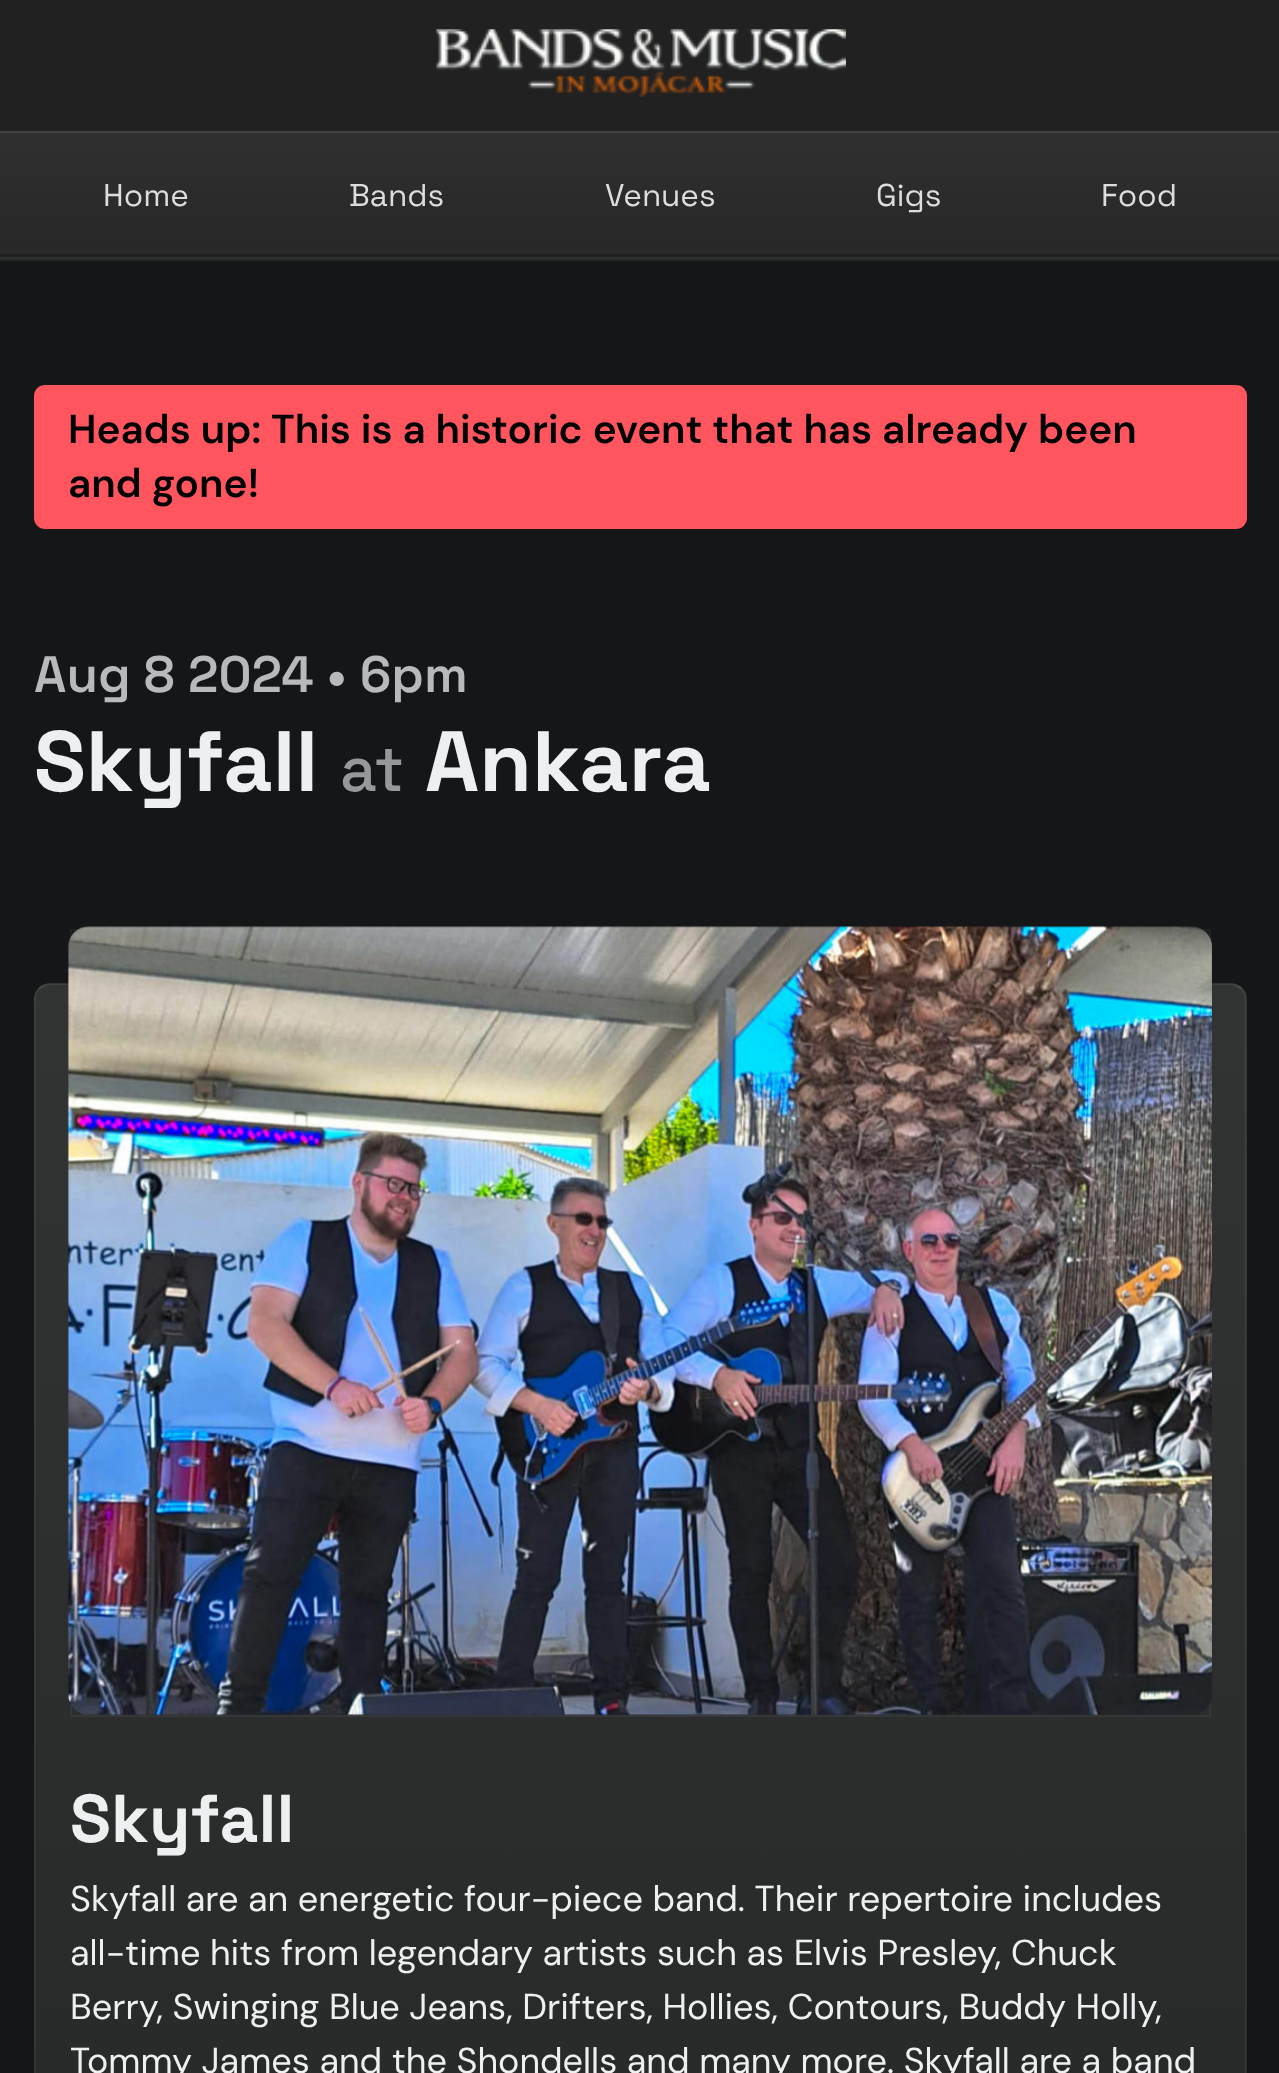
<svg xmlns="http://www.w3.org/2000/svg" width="1279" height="2073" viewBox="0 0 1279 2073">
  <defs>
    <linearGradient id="g1" gradientUnits="userSpaceOnUse" x1="640" y1="133" x2="640" y2="257"><stop offset="0" stop-color="#464646" stop-opacity="0.4"/><stop offset="1" stop-color="#373737" stop-opacity="0.3"/></linearGradient>
    <clipPath id="clip1"><rect x="34" y="983" width="1213" height="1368" rx="16"/></clipPath>
    <linearGradient id="g2" gradientUnits="userSpaceOnUse" x1="640" y1="-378" x2="640" y2="986"><stop offset="0" stop-color="#323333"/><stop offset="1" stop-color="#262727"/></linearGradient>
    <linearGradient id="g3" gradientUnits="userSpaceOnUse" x1="640" y1="985" x2="640" y2="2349"><stop offset="0" stop-color="#323333"/><stop offset="1" stop-color="#262727"/></linearGradient>
  </defs>
  <rect width="100%" height="100%" fill="#151617"/>
  <rect x="0" y="0" width="1279" height="254" fill="#212121"/>
  <image x="436" y="29" width="410" height="68" href="img1.png"/>
  <rect x="0" y="133" width="1279" height="124" fill="url(#g1)"/>
  <rect x="0" y="131" width="1279" height="2" fill="#434343"/>
  <rect x="0" y="257" width="1279" height="2" fill="#2e2e2f"/>
  <text x="103" y="206" font-family="Space Grotesk" font-size="31.5" fill="#dddddd">Home</text>
  <text x="349" y="206" font-family="Space Grotesk" font-size="31.5" fill="#dddddd">Bands</text>
  <text x="605" y="206" font-family="Space Grotesk" font-size="31.5" fill="#dddddd">Venues</text>
  <text x="876" y="206" font-family="Space Grotesk" font-size="31.5" fill="#dddddd">Gigs</text>
  <text x="1101" y="206" font-family="Space Grotesk" font-size="31.5" fill="#dddddd">Food</text>
  <rect x="0" y="259" width="1279" height="2" fill="#232425"/>
  <rect x="34" y="385" width="1213" height="144" rx="11" fill="#ff555f"/>
  <text x="68" y="443" font-family="DM Sans" font-size="40.5" font-weight="600" fill="#000000">Heads up: This is a historic event that has already been</text>
  <text x="68" y="497" font-family="DM Sans" font-size="40.5" font-weight="600" fill="#000000">and gone!</text>
  <text x="34" y="692" font-family="Space Grotesk" font-size="51.25" font-weight="600" fill="#b6babb">Aug 8 2024 • 6pm</text>
  <text x="34" y="791" font-family="Space Grotesk" font-size="85.5" font-weight="bold" fill="#ecf0f1">Skyfall</text>
  <text x="340" y="791" font-family="Space Grotesk" font-size="64" font-weight="500" fill="#96999a">at</text>
  <text x="425" y="791" font-family="Space Grotesk" font-size="85.5" font-weight="bold" fill="#ecf0f1">Ankara</text>
  <g clip-path="url(#clip1)">
    <rect x="34" y="983" width="1213" height="3" fill="url(#g2)"/>
    <rect x="34" y="986" width="1213" height="1087" fill="url(#g3)"/>
  </g>
  <path d="M39 988.5C42 986 45.5 984.5 49.5 984.5H1231C1234.5 984.5 1238.5 986 1241 988.5" fill="none" stroke="#ffffff" stroke-opacity="0.12" stroke-width="2.2"/>
  <path d="M1241 988.5C1244 991.5 1245.5 995 1245.5 999V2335.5C1245.5 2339.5 1244 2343 1241 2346" fill="none" stroke="#ffffff" stroke-opacity="0.05" stroke-width="2.2"/>
  <path d="M39 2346C36.5 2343 35 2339.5 35 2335.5V999C35 995 36.5 991.5 39 988.5" fill="none" stroke="#ffffff" stroke-opacity="0.05" stroke-width="2.2"/>
  <rect x="71" y="930" width="1139" height="786" fill="none" stroke="#ffffff" stroke-opacity="0.05" stroke-width="2"/>
  <image x="67" y="926" width="1145" height="790" href="img2.png"/>
  <text x="70" y="1842" font-family="Space Grotesk" font-size="67.5" font-weight="bold" fill="#ecf0f1">Skyfall</text>
  <text x="70" y="1911" font-family="DM Sans" font-size="36" fill="#ecf0f1">Skyfall are an energetic four-piece band. Their repertoire includes</text>
  <text x="70" y="1965" font-family="DM Sans" font-size="36" fill="#ecf0f1">all-time hits from legendary artists such as Elvis Presley, Chuck</text>
  <text x="70" y="2019" font-family="DM Sans" font-size="36" fill="#ecf0f1">Berry, Swinging Blue Jeans, Drifters, Hollies, Contours, Buddy Holly,</text>
  <text x="70" y="2073" font-family="DM Sans" font-size="36" fill="#ecf0f1">Tommy James and the Shondells and many more. Skyfall are a band</text>
</svg>
